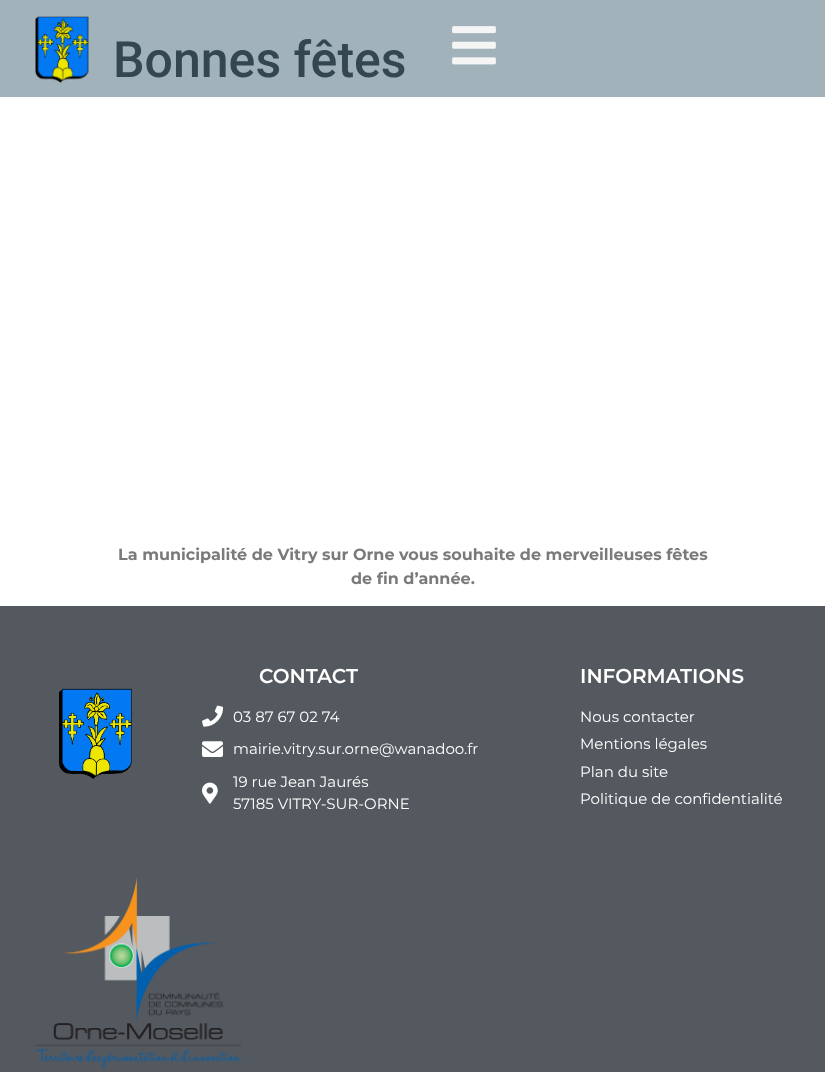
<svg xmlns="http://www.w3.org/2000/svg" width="825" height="1072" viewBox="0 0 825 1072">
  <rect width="100%" height="100%" fill="#ffffff"/>
  <rect x="0" y="0" width="825" height="97" fill="#a1b2ba"/>
  <image x="35" y="16" width="54" height="67" href="img1.png"/>
  <image x="452" y="26" width="44" height="39" href="img2.png"/>
  <text x="113" y="77" font-family="Roboto" font-size="50" font-weight="500" fill="#34464e">Bonnes fêtes</text>
  <text x="118" y="560" font-family="Montserrat" font-size="16" font-weight="bold" fill="#7a7a7a">La municipalité de Vitry sur Orne vous souhaite de merveilleuses fêtes</text>
  <text x="351" y="584" font-family="Montserrat" font-size="16" font-weight="bold" fill="#7a7a7a">de fin d’année.</text>
  <rect x="0" y="606" width="825" height="466" fill="#54595f"/>
  <image x="59" y="688" width="73" height="91" href="img3.png"/>
  <text x="259" y="683" font-family="Montserrat" font-size="20" font-weight="600" fill="#ffffff">CONTACT</text>
  <image x="202" y="705" width="21" height="22" href="img4.png"/>
  <text x="233" y="722" font-family="Montserrat" font-size="15" fill="#ffffff">03 87 67 02 74</text>
  <image x="202" y="741" width="21" height="16" href="img5.png"/>
  <text x="233" y="754" font-family="Montserrat" font-size="15" fill="#ffffff">mairie.vitry.sur.orne@wanadoo.fr</text>
  <image x="202" y="782" width="16" height="22" href="img6.png"/>
  <text x="233" y="787" font-family="Montserrat" font-size="15" fill="#ffffff">19 rue Jean Jaurés</text>
  <text x="233" y="809" font-family="Montserrat" font-size="15" fill="#ffffff">57185 VITRY-SUR-ORNE</text>
  <text x="580" y="683" font-family="Montserrat" font-size="20" font-weight="600" fill="#ffffff">INFORMATIONS</text>
  <text x="580" y="722" font-family="Montserrat" font-size="15" fill="#ffffff">Nous contacter</text>
  <text x="580" y="749" font-family="Montserrat" font-size="15" fill="#ffffff">Mentions légales</text>
  <text x="580" y="777" font-family="Montserrat" font-size="15" fill="#ffffff">Plan du site</text>
  <text x="580" y="804" font-family="Montserrat" font-size="15" fill="#ffffff">Politique de confidentialité</text>
  <image x="35" y="877" width="206" height="192" href="img7.png"/>
</svg>
